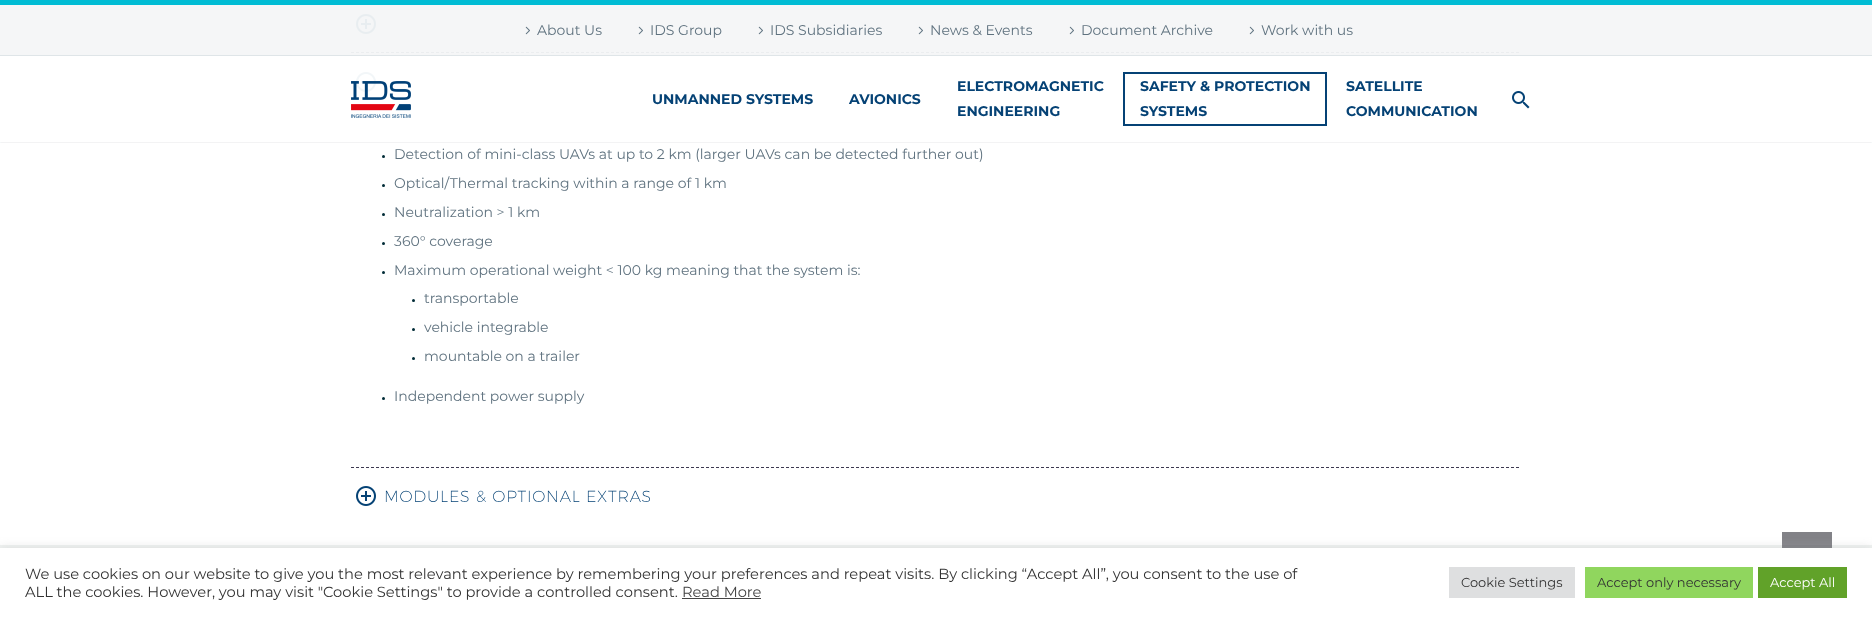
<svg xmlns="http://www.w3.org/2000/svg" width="1872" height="617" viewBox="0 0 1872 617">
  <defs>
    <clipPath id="clip1"><rect x="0" y="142" width="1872" height="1"/></clipPath>
    <filter id="blur1" x="-50%" y="-200%" width="200%" height="500%"><feGaussianBlur stdDeviation="1"/></filter>
    <filter id="blur2" x="-50%" y="-200%" width="200%" height="500%"><feGaussianBlur stdDeviation="5"/></filter>
  </defs>
  <rect width="100%" height="100%" fill="#ffffff"/>
  <rect x="0" y="5" width="1872" height="50" fill="#f5f6f7"/>
  <image x="356" y="14" width="20" height="20" href="img4.png"/>
  <path d="M351 52.5H1519" fill="none" stroke="#ebedef" stroke-dasharray="3 2"/>
  <image x="356" y="72" width="20" height="20" href="img5.png"/>
  <g clip-path="url(#clip1)">
    <rect x="0" y="0" width="1872" height="142" fill="#384554" fill-opacity="0.2" filter="url(#blur1)"/>
  </g>
  <rect x="0" y="0" width="1872" height="5" fill="#00bcd4"/>
  <rect x="0" y="55" width="1872" height="1" fill="#dfe5e8"/>
  <image x="525" y="26" width="5" height="9" href="img1.png"/>
  <text x="537" y="35" font-family="Montserrat" font-size="14" font-weight="100" fill="#5f727f">About Us</text>
  <image x="638" y="26" width="5" height="9" href="img1.png"/>
  <text x="650" y="35" font-family="Montserrat" font-size="14" font-weight="100" fill="#5f727f">IDS Group</text>
  <image x="758" y="26" width="5" height="9" href="img1.png"/>
  <text x="770" y="35" font-family="Montserrat" font-size="14" font-weight="100" fill="#5f727f">IDS Subsidiaries</text>
  <image x="918" y="26" width="5" height="9" href="img1.png"/>
  <text x="930" y="35" font-family="Montserrat" font-size="14" font-weight="100" fill="#5f727f">News &amp; Events</text>
  <image x="1069" y="26" width="5" height="9" href="img1.png"/>
  <text x="1081" y="35" font-family="Montserrat" font-size="14" font-weight="100" fill="#5f727f">Document Archive</text>
  <image x="1249" y="26" width="5" height="9" href="img1.png"/>
  <text x="1261" y="35" font-family="Montserrat" font-size="14" font-weight="100" fill="#5f727f">Work with us</text>
  <image x="351" y="81" width="60" height="37" href="img2.png"/>
  <text x="652" y="104" font-family="Montserrat" font-size="14" font-weight="bold" fill="#054275">UNMANNED SYSTEMS</text>
  <text x="849" y="104" font-family="Montserrat" font-size="14" font-weight="bold" fill="#054275">AVIONICS</text>
  <text x="957" y="91" font-family="Montserrat" font-size="14" font-weight="bold" fill="#054275">ELECTROMAGNETIC</text>
  <text x="957" y="116" font-family="Montserrat" font-size="14" font-weight="bold" fill="#054275">ENGINEERING</text>
  <rect x="1124" y="73" width="202" height="52" fill="none" stroke="#054275" stroke-width="2"/>
  <text x="1140" y="91" font-family="Montserrat" font-size="14" font-weight="bold" fill="#054275">SAFETY &amp; PROTECTION</text>
  <text x="1140" y="116" font-family="Montserrat" font-size="14" font-weight="bold" fill="#054275">SYSTEMS</text>
  <text x="1346" y="91" font-family="Montserrat" font-size="14" font-weight="bold" fill="#054275">SATELLITE</text>
  <text x="1346" y="116" font-family="Montserrat" font-size="14" font-weight="bold" fill="#054275">COMMUNICATION</text>
  <image x="1512" y="91" width="18" height="18" href="img3.png"/>
  <circle cx="383.5" cy="156.5" r="1.5" fill="#002b36"/>
  <text x="394" y="159" font-family="Montserrat" font-size="14" font-weight="100" fill="#5f727f">Detection of mini-class UAVs at up to 2 km (larger UAVs can be detected further out)</text>
  <circle cx="383.5" cy="185.5" r="1.5" fill="#002b36"/>
  <text x="394" y="188" font-family="Montserrat" font-size="14" font-weight="100" fill="#5f727f">Optical/Thermal tracking within a range of 1 km</text>
  <circle cx="383.5" cy="214.5" r="1.5" fill="#002b36"/>
  <text x="394" y="217" font-family="Montserrat" font-size="14" font-weight="100" fill="#5f727f">Neutralization &gt; 1 km</text>
  <circle cx="383.5" cy="243.5" r="1.5" fill="#002b36"/>
  <text x="394" y="246" font-family="Montserrat" font-size="14" font-weight="100" fill="#5f727f">360° coverage</text>
  <circle cx="383.5" cy="272.5" r="1.5" fill="#002b36"/>
  <text x="394" y="275" font-family="Montserrat" font-size="14" font-weight="100" fill="#5f727f">Maximum operational weight &lt; 100 kg meaning that the system is:</text>
  <circle cx="413.5" cy="300.5" r="1.5" fill="#002b36"/>
  <text x="424" y="303" font-family="Montserrat" font-size="14" font-weight="100" fill="#5f727f">transportable</text>
  <circle cx="413.5" cy="329.5" r="1.5" fill="#002b36"/>
  <text x="424" y="332" font-family="Montserrat" font-size="14" font-weight="100" fill="#5f727f">vehicle integrable</text>
  <circle cx="413.5" cy="358.5" r="1.5" fill="#002b36"/>
  <text x="424" y="361" font-family="Montserrat" font-size="14" font-weight="100" fill="#5f727f">mountable on a trailer</text>
  <circle cx="383.5" cy="398.5" r="1.5" fill="#002b36"/>
  <text x="394" y="401" font-family="Montserrat" font-size="14" font-weight="100" fill="#5f727f">Independent power supply</text>
  <path d="M351 467.5H1519" fill="none" stroke="#3c3950" stroke-dasharray="3 2"/>
  <image x="356" y="486" width="20" height="20" href="img6.png"/>
  <text x="384" y="502" font-family="Montserrat" font-size="16" font-weight="200" letter-spacing="0.8" fill="#054275">MODULES &amp; OPTIONAL EXTRAS</text>
  <rect x="0" y="545" width="1872" height="3" fill="#f0f3f2"/>
  <rect x="1782" y="532" width="50" height="16" fill="#06060f" fill-opacity="0.5"/>
  <rect x="0" y="547" width="1872" height="69" fill="#acabab" fill-opacity="0.3" filter="url(#blur2)"/>
  <rect x="0" y="548" width="1872" height="69" fill="#ffffff"/>
  <text x="25" y="579" font-family="Montserrat" font-size="14.67" font-weight="100" fill="#333333">We use cookies on our website to give you the most relevant experience by remembering your preferences and repeat visits. By clicking “Accept All”, you consent to the use of</text>
  <text x="25" y="597" font-family="Montserrat" font-size="14.67" font-weight="100" fill="#333333">ALL the cookies. However, you may visit "Cookie Settings" to provide a controlled consent.</text>
  <text x="682" y="597" font-family="Montserrat" font-size="14.67" font-weight="100" fill="#444444">Read More</text>
  <rect x="682" y="598" width="79" height="1" fill="#444444"/>
  <rect x="1449" y="567" width="126" height="31" fill="#dedfe0"/>
  <text x="1461" y="587" font-family="Montserrat" font-size="13" font-weight="100" fill="#333333">Cookie Settings</text>
  <rect x="1585" y="567" width="168" height="31" fill="#90d65e"/>
  <text x="1597" y="587" font-family="Montserrat" font-size="13" font-weight="100" fill="#333333">Accept only necessary</text>
  <rect x="1758" y="567" width="89" height="31" fill="#61a229"/>
  <text x="1770" y="587" font-family="Montserrat" font-size="13" font-weight="100" fill="#ffffff">Accept All</text>
</svg>
